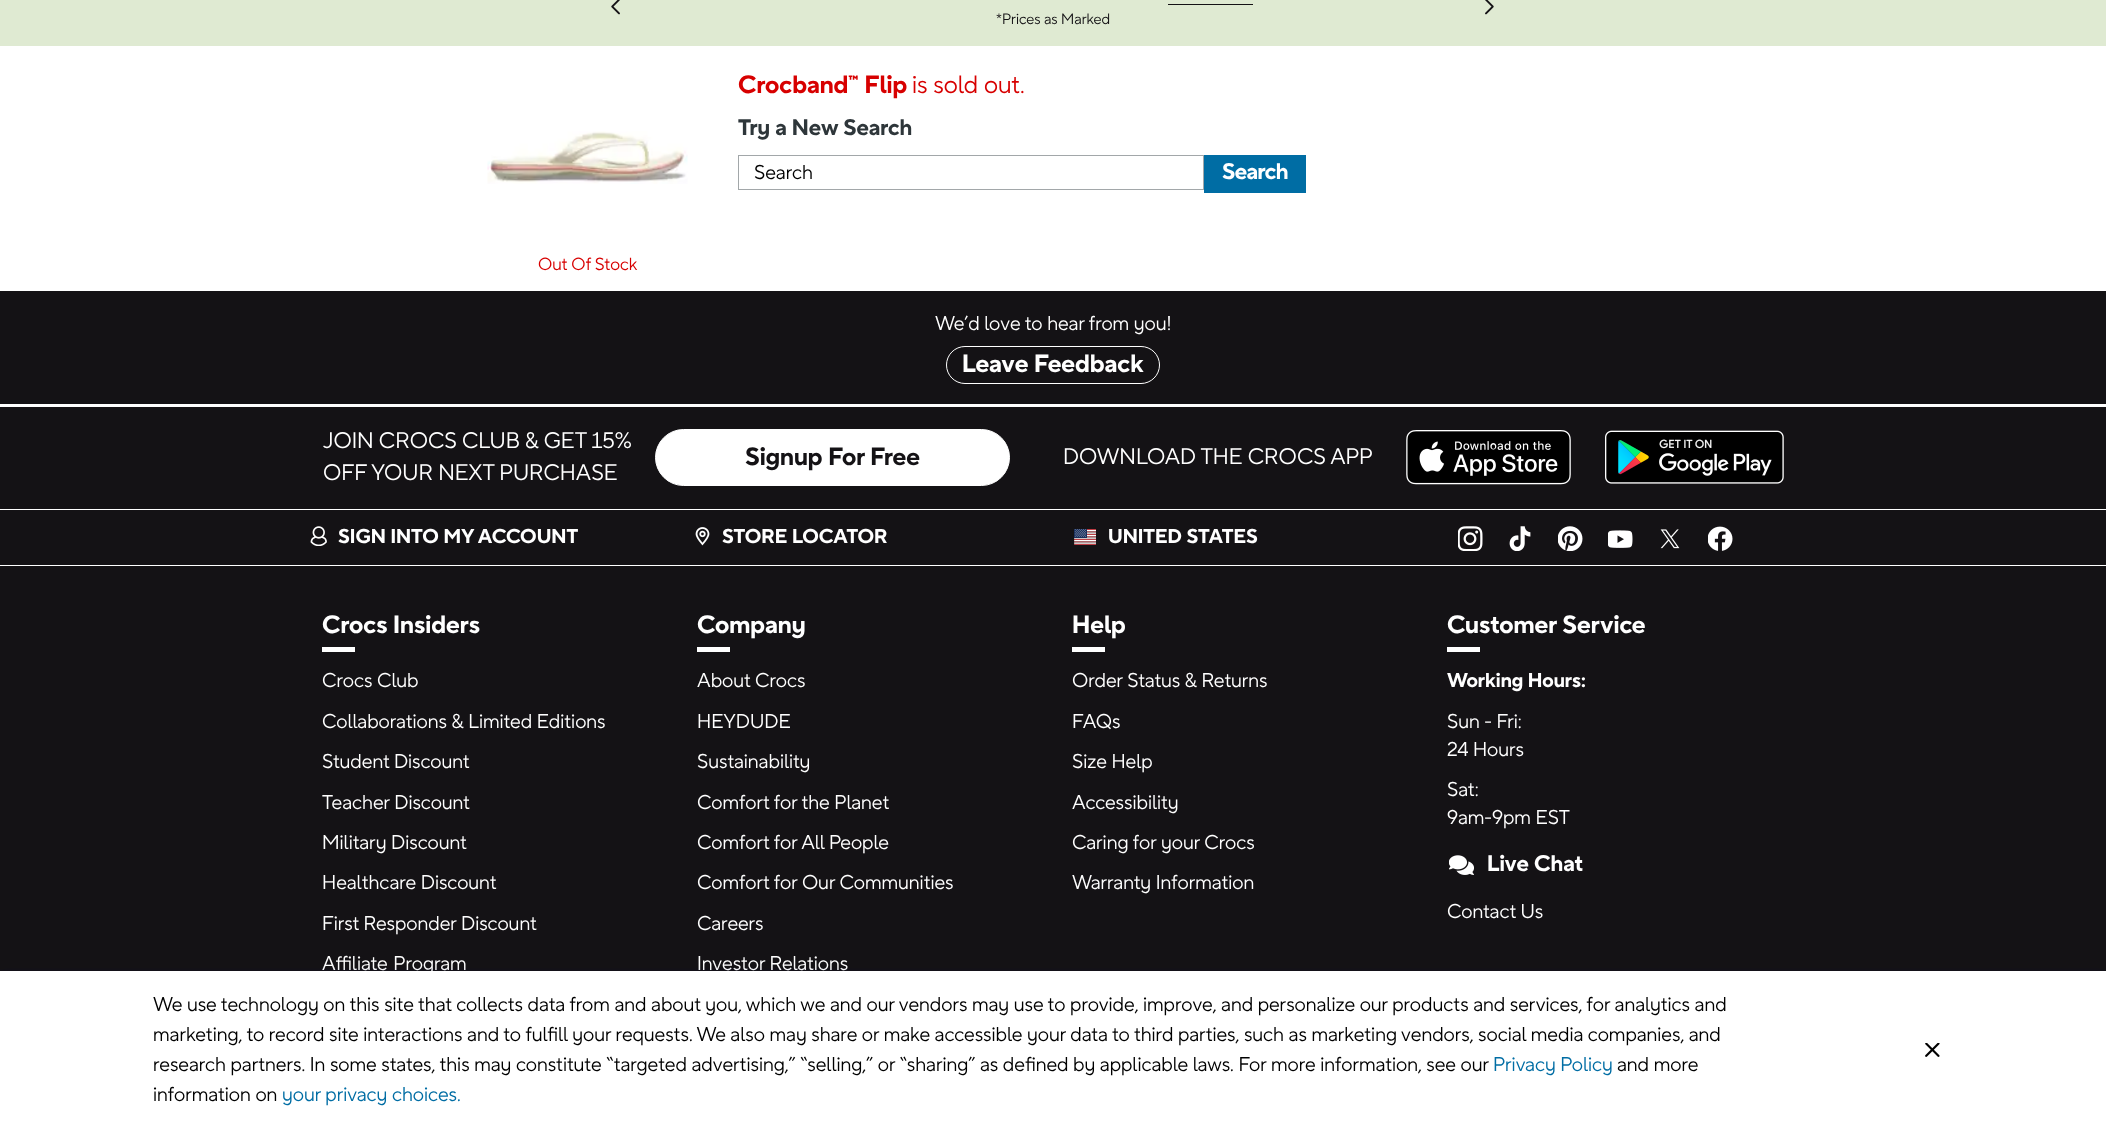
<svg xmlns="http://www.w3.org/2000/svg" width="2106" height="1128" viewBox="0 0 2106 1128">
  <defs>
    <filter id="blur1" x="-50%" y="-200%" width="200%" height="500%"><feGaussianBlur stdDeviation="6"/></filter>
  </defs>
  <rect width="100%" height="100%" fill="#ffffff"/>
  <rect x="0" y="0" width="2106" height="46" fill="#dfead2"/>
  <image x="611" y="0" width="9" height="15" href="img1.png"/>
  <image x="1485" y="0" width="9" height="15" href="img2.png"/>
  <rect x="1168" y="4" width="85" height="1" fill="#141215"/>
  <text x="996" y="24" font-family="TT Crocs" font-size="15" fill="#141215">*Prices as Marked</text>
  <text x="738" y="93" font-family="TT Crocs" font-size="25" font-weight="bold" fill="#d70000">Crocband™ Flip</text>
  <text x="912" y="93" font-family="TT Crocs" font-size="25" fill="#d70000">is sold out.</text>
  <text x="738" y="135" font-family="TT Crocs" font-size="22.5" font-weight="bold" fill="#2e363a">Try a New Search</text>
  <rect x="738.5" y="155.5" width="465" height="34" fill="none" stroke="#a2a7a9"/>
  <text x="754" y="179" font-family="TT Crocs" font-size="20" fill="#000000">Search</text>
  <rect x="1204" y="155" width="102" height="38" fill="#006da4"/>
  <text x="1222" y="179" font-family="TT Crocs" font-size="22.5" font-weight="bold" letter-spacing="-0.5" fill="#ffffff">Search</text>
  <image x="487" y="131" width="201" height="53" href="img3.png"/>
  <text x="538" y="270" font-family="TT Crocs" font-size="17.5" fill="#d70000">Out Of Stock</text>
  <rect x="0" y="291" width="2106" height="680" fill="#141215"/>
  <rect x="0" y="404" width="2106" height="3" fill="#ffffff"/>
  <text x="935" y="330" font-family="TT Crocs" font-size="20" fill="#ffffff">We’d love to hear from you!</text>
  <rect x="946.5" y="346.5" width="213" height="37" rx="18.5" fill="none" stroke="#ffffff"/>
  <text x="962" y="372" font-family="TT Crocs" font-size="25" font-weight="bold" fill="#ffffff">Leave Feedback</text>
  <text x="323" y="448" font-family="TT Crocs" font-size="22.5" fill="#ffffff">JOIN CROCS CLUB &amp; GET 15%</text>
  <text x="323" y="480" font-family="TT Crocs" font-size="22.5" fill="#ffffff">OFF YOUR NEXT PURCHASE</text>
  <rect x="655.5" y="429.5" width="354" height="56" rx="28" fill="#ffffff" stroke="#ffffff"/>
  <text x="745" y="465" font-family="TT Crocs" font-size="25" font-weight="bold" fill="#141215">Signup For Free</text>
  <text x="1063" y="464" font-family="TT Crocs" font-size="22.5" fill="#ffffff">DOWNLOAD THE CROCS APP</text>
  <image x="1406" y="430" width="165" height="55" href="img4.png"/>
  <image x="1605" y="430" width="179" height="54" href="img5.png"/>
  <rect x="0" y="509" width="2106" height="1" fill="#ffffff"/>
  <rect x="0" y="565" width="2106" height="1" fill="#ffffff"/>
  <image x="310" y="526" width="17" height="20" href="img6.png"/>
  <text x="338" y="543" font-family="TT Crocs" font-size="20" font-weight="bold" fill="#ffffff">SIGN INTO MY ACCOUNT</text>
  <image x="695" y="527" width="15" height="19" href="img7.png"/>
  <text x="722" y="543" font-family="TT Crocs" font-size="20" font-weight="bold" fill="#ffffff">STORE LOCATOR</text>
  <image x="1074" y="529" width="22" height="16" href="img8.png"/>
  <text x="1108" y="543" font-family="TT Crocs" font-size="20" font-weight="bold" fill="#ffffff">UNITED STATES</text>
  <image x="1458" y="526" width="25" height="25" href="img9.png"/>
  <image x="1509" y="526" width="22" height="25" href="img10.png"/>
  <image x="1558" y="526" width="25" height="25" href="img11.png"/>
  <image x="1608" y="530" width="25" height="18" href="img12.png"/>
  <image x="1660" y="529" width="20" height="20" href="img13.png"/>
  <image x="1708" y="526" width="25" height="25" href="img14.png"/>
  <rect x="322" y="647" width="33" height="5" fill="#ffffff"/>
  <text x="322" y="633" font-family="TT Crocs" font-size="25" font-weight="bold" fill="#ffffff">Crocs Insiders</text>
  <text x="322" y="687" font-family="TT Crocs" font-size="20" fill="#ffffff">Crocs Club</text>
  <text x="322" y="728" font-family="TT Crocs" font-size="20" fill="#ffffff">Collaborations &amp; Limited Editions</text>
  <text x="322" y="768" font-family="TT Crocs" font-size="20" fill="#ffffff">Student Discount</text>
  <text x="322" y="809" font-family="TT Crocs" font-size="20" fill="#ffffff">Teacher Discount</text>
  <text x="322" y="849" font-family="TT Crocs" font-size="20" fill="#ffffff">Military Discount</text>
  <text x="322" y="889" font-family="TT Crocs" font-size="20" fill="#ffffff">Healthcare Discount</text>
  <text x="322" y="930" font-family="TT Crocs" font-size="20" fill="#ffffff">First Responder Discount</text>
  <text x="322" y="970" word-spacing="1" font-family="TT Crocs" font-size="20" fill="#ffffff">Affiliate Program</text>
  <rect x="697" y="647" width="33" height="5" fill="#ffffff"/>
  <text x="697" y="633" font-family="TT Crocs" font-size="25" font-weight="bold" fill="#ffffff">Company</text>
  <text x="697" y="687" font-family="TT Crocs" font-size="20" fill="#ffffff">About Crocs</text>
  <text x="697" y="728" font-family="TT Crocs" font-size="20" fill="#ffffff">HEYDUDE</text>
  <text x="697" y="768" font-family="TT Crocs" font-size="20" fill="#ffffff">Sustainability</text>
  <text x="697" y="809" font-family="TT Crocs" font-size="20" fill="#ffffff">Comfort for the Planet</text>
  <text x="697" y="849" font-family="TT Crocs" font-size="20" fill="#ffffff">Comfort for All People</text>
  <text x="697" y="889" font-family="TT Crocs" font-size="20" fill="#ffffff">Comfort for Our Communities</text>
  <text x="697" y="930" font-family="TT Crocs" font-size="20" fill="#ffffff">Careers</text>
  <text x="697" y="970" font-family="TT Crocs" font-size="20" fill="#ffffff">Investor Relations</text>
  <rect x="1072" y="647" width="33" height="5" fill="#ffffff"/>
  <text x="1072" y="633" font-family="TT Crocs" font-size="25" font-weight="bold" fill="#ffffff">Help</text>
  <text x="1072" y="687" font-family="TT Crocs" font-size="20" fill="#ffffff">Order Status &amp; Returns</text>
  <text x="1072" y="728" font-family="TT Crocs" font-size="20" fill="#ffffff">FAQs</text>
  <text x="1072" y="768" font-family="TT Crocs" font-size="20" fill="#ffffff">Size Help</text>
  <text x="1072" y="809" font-family="TT Crocs" font-size="20" fill="#ffffff">Accessibility</text>
  <text x="1072" y="849" font-family="TT Crocs" font-size="20" fill="#ffffff">Caring for your Crocs</text>
  <text x="1072" y="889" font-family="TT Crocs" font-size="20" fill="#ffffff">Warranty Information</text>
  <rect x="1447" y="647" width="33" height="5" fill="#ffffff"/>
  <text x="1447" y="633" font-family="TT Crocs" font-size="25" font-weight="bold" fill="#ffffff">Customer Service</text>
  <text x="1447" y="687" font-family="TT Crocs" font-size="20" font-weight="bold" fill="#ffffff">Working Hours:</text>
  <text x="1447" y="728" font-family="TT Crocs" font-size="20" fill="#ffffff">Sun - Fri:</text>
  <text x="1447" y="756" font-family="TT Crocs" font-size="20" fill="#ffffff">24 Hours</text>
  <text x="1447" y="796" font-family="TT Crocs" font-size="20" fill="#ffffff">Sat:</text>
  <text x="1447" y="824" font-family="TT Crocs" font-size="20" fill="#ffffff">9am-9pm EST</text>
  <image x="1449" y="855" width="25" height="20" href="img15.png"/>
  <text x="1487" y="871" font-family="TT Crocs" font-size="22.5" font-weight="bold" fill="#ffffff">Live Chat</text>
  <text x="1447" y="918" font-family="TT Crocs" font-size="20" fill="#ffffff">Contact Us</text>
  <rect x="0" y="973" width="2106" height="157" fill="#343649" fill-opacity="0.15" filter="url(#blur1)"/>
  <rect x="0" y="971" width="2106" height="157" fill="#ffffff"/>
  <text x="153" y="1011" font-family="TT Crocs" font-size="20" fill="#000000">We use technology on this site that collects data from and about you, which we and our vendors may use to provide, improve, and personalize our products and services, for analytics and</text>
  <text x="153" y="1041" font-family="TT Crocs" font-size="20" fill="#000000">marketing, to record site interactions and to fulfill your requests. We also may share or make accessible your data to third parties, such as marketing vendors, social media companies, and</text>
  <text x="153" y="1071" font-family="TT Crocs" font-size="20" fill="#000000">research partners. In some states, this may constitute “targeted advertising,” “selling,” or “sharing” as defined by applicable laws. For more information, see our</text>
  <text x="1493" y="1071" font-family="TT Crocs" font-size="20" fill="#006da4">Privacy Policy</text>
  <text x="1617" y="1071" font-family="TT Crocs" font-size="20" fill="#000000">and more</text>
  <text x="153" y="1101" font-family="TT Crocs" font-size="20" fill="#000000">information on</text>
  <text x="282" y="1101" font-family="TT Crocs" font-size="20" fill="#006da4">your privacy choices.</text>
  <image x="1925" y="1043" width="15" height="14" href="img16.png"/>
</svg>
